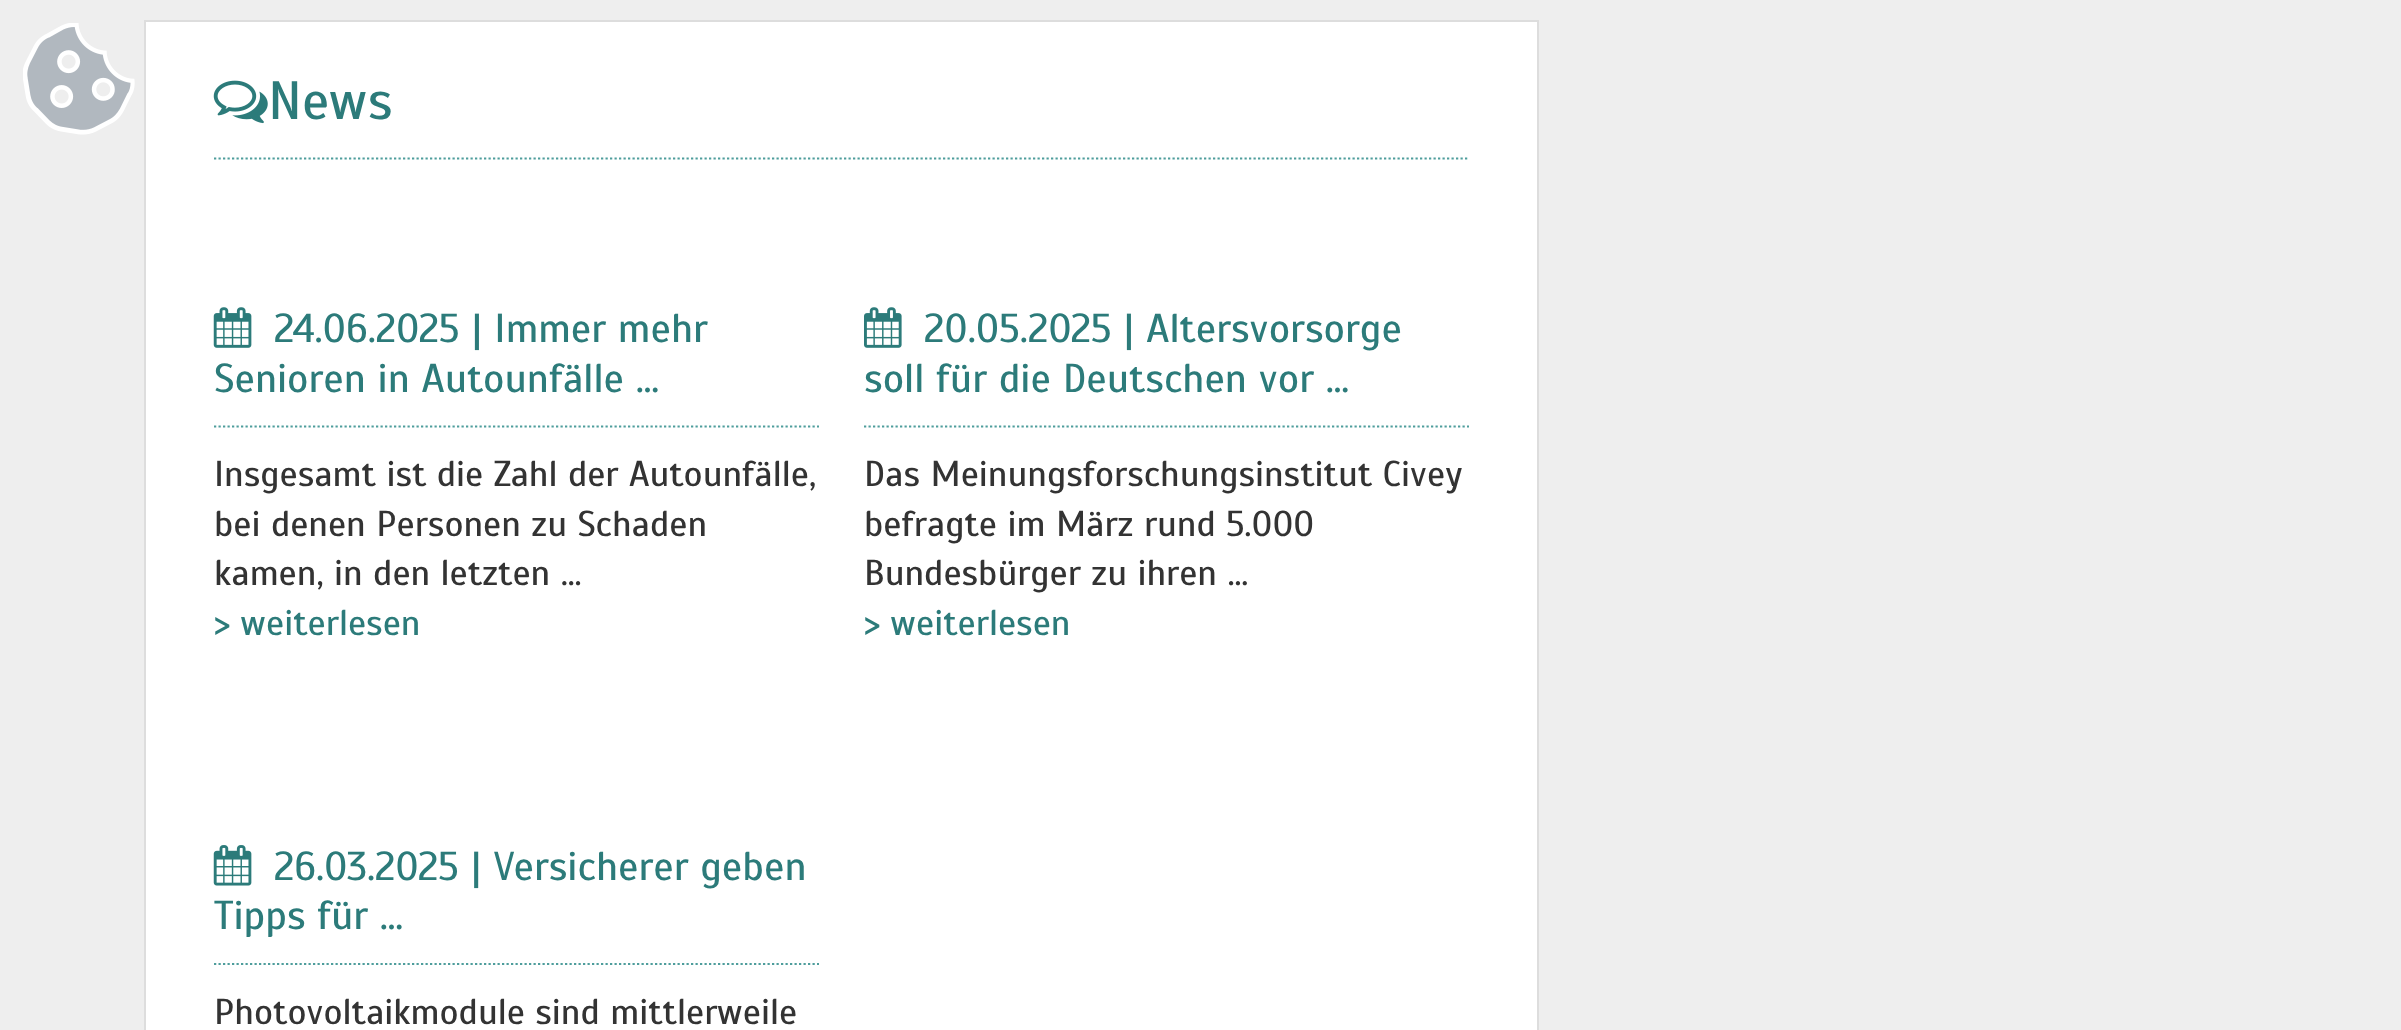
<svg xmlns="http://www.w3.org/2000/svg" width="2401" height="1030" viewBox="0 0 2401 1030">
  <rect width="100%" height="100%" fill="#eeeeee"/>
  <image x="23" y="23" width="112" height="112" href="img1.png"/>
  <rect x="145" y="21" width="1393" height="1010" fill="#ffffff" stroke="#dddddd" stroke-width="2"/>
  <path d="M214 158.5H1469" fill="none" stroke="#4e9d9c" stroke-width="2.2" stroke-dasharray="2.25 2.25"/>
  <image x="213" y="80" width="55" height="44" href="img2.png"/>
  <text x="268" y="119" font-family="Scada" font-size="54" fill="#2c7b7a">News</text>
  <path d="M214 426.5H819" fill="none" stroke="#4e9d9c" stroke-width="2.2" stroke-dasharray="2.25 2.25"/>
  <image x="213" y="307" width="39" height="41" href="img3.png"/>
  <text x="274" y="342" font-family="Scada" font-size="40.5" fill="#2c7b7a">24.06.2025 | Immer mehr</text>
  <text x="214" y="392" font-family="Scada" font-size="40.5" fill="#2c7b7a">Senioren in Autounfälle …</text>
  <text x="214" y="486" font-family="Scada" font-size="36" fill="#333333">Insgesamt ist die Zahl der Autounfälle,</text>
  <text x="214" y="536" font-family="Scada" font-size="36" fill="#333333">bei denen Personen zu Schaden</text>
  <text x="214" y="585" font-family="Scada" font-size="36" fill="#333333">kamen, in den letzten …</text>
  <text x="214" y="635" font-family="Scada" font-size="36" fill="#2c7b7a">&gt; weiterlesen</text>
  <path d="M864 426.5H1469" fill="none" stroke="#4e9d9c" stroke-width="2.2" stroke-dasharray="2.25 2.25"/>
  <image x="864" y="307" width="38" height="41" href="img4.png"/>
  <text x="924" y="342" font-family="Scada" font-size="40.5" fill="#2c7b7a">20.05.2025 | Altersvorsorge</text>
  <text x="864" y="392" font-family="Scada" font-size="40.5" fill="#2c7b7a">soll für die Deutschen vor …</text>
  <text x="864" y="486" font-family="Scada" font-size="36" fill="#333333">Das Meinungsforschungsinstitut Civey</text>
  <text x="864" y="536" font-family="Scada" font-size="36" fill="#333333">befragte im März rund 5.000</text>
  <text x="864" y="585" font-family="Scada" font-size="36" fill="#333333">Bundesbürger zu ihren …</text>
  <text x="864" y="635" font-family="Scada" font-size="36" fill="#2c7b7a">&gt; weiterlesen</text>
  <path d="M214 964H819" fill="none" stroke="#4e9d9c" stroke-width="2.2" stroke-dasharray="2.25 2.25"/>
  <image x="213" y="845" width="39" height="41" href="img5.png"/>
  <text x="274" y="880" font-family="Scada" font-size="40.5" fill="#2c7b7a">26.03.2025 | Versicherer geben</text>
  <text x="214" y="929" font-family="Scada" font-size="40.5" fill="#2c7b7a">Tipps für …</text>
  <text x="214" y="1024" font-family="Scada" font-size="36" fill="#333333">Photovoltaikmodule sind mittlerweile</text>
</svg>
